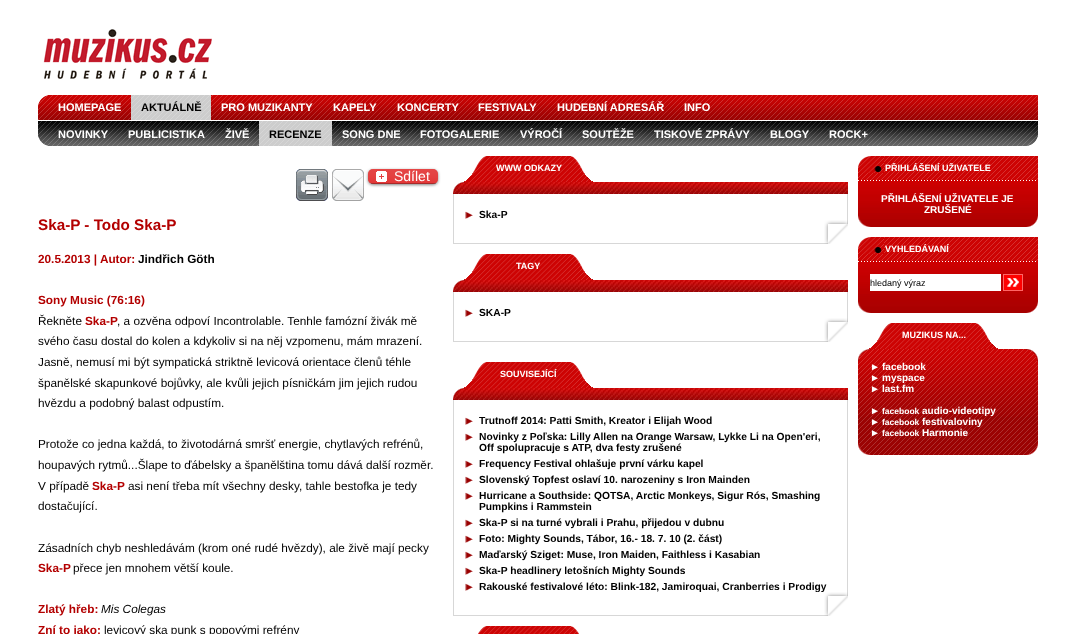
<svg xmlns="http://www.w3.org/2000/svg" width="1075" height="634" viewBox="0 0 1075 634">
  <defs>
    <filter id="blur1" x="-50%" y="-200%" width="200%" height="500%"><feGaussianBlur stdDeviation="1.5"/></filter>
    <clipPath id="clip1"><rect x="464" y="400" width="373" height="192"/></clipPath>
  </defs>
  <rect width="100%" height="100%" fill="#ffffff"/>
  <image x="43" y="29" width="169" height="50" href="img1.png"/>
  <image x="38" y="95" width="10" height="51" href="img2.png"/>
  <image x="48" y="95" width="980" height="25" href="img3.png"/>
  <text x="58" y="111" font-family="Liberation Sans" font-size="11" font-weight="bold" fill="#ffffff">HOMEPAGE</text>
  <image x="131" y="95" width="80" height="25" href="img4.png"/>
  <text x="141" y="111" font-family="Liberation Sans" font-size="11" font-weight="bold" fill="#000000">AKTUÁLNĚ</text>
  <text x="221" y="111" font-family="Liberation Sans" font-size="11" font-weight="bold" fill="#ffffff">PRO MUZIKANTY</text>
  <text x="333" y="111" font-family="Liberation Sans" font-size="11" font-weight="bold" fill="#ffffff">KAPELY</text>
  <text x="397" y="111" font-family="Liberation Sans" font-size="11" font-weight="bold" fill="#ffffff">KONCERTY</text>
  <text x="478" y="111" font-family="Liberation Sans" font-size="11" font-weight="bold" fill="#ffffff">FESTIVALY</text>
  <text x="557" y="111" font-family="Liberation Sans" font-size="11" font-weight="bold" fill="#ffffff">HUDEBNÍ ADRESÁŘ</text>
  <text x="684" y="111" font-family="Liberation Sans" font-size="11" font-weight="bold" fill="#ffffff">INFO</text>
  <image x="48" y="121" width="980" height="25" href="img5.png"/>
  <text x="58" y="138" font-family="Liberation Sans" font-size="11" font-weight="bold" fill="#ffffff">NOVINKY</text>
  <text x="128" y="138" font-family="Liberation Sans" font-size="11" font-weight="bold" fill="#ffffff">PUBLICISTIKA</text>
  <text x="225" y="138" font-family="Liberation Sans" font-size="11" font-weight="bold" fill="#ffffff">ŽIVĚ</text>
  <image x="259" y="121" width="73" height="25" href="img6.png"/>
  <text x="269" y="138" font-family="Liberation Sans" font-size="11" font-weight="bold" fill="#000000">RECENZE</text>
  <text x="342" y="138" font-family="Liberation Sans" font-size="11" font-weight="bold" fill="#ffffff">SONG DNE</text>
  <text x="420" y="138" font-family="Liberation Sans" font-size="11" font-weight="bold" fill="#ffffff">FOTOGALERIE</text>
  <text x="520" y="138" font-family="Liberation Sans" font-size="11" font-weight="bold" fill="#ffffff">VÝROČÍ</text>
  <text x="582" y="138" font-family="Liberation Sans" font-size="11" font-weight="bold" fill="#ffffff">SOUTĚŽE</text>
  <text x="654" y="138" font-family="Liberation Sans" font-size="11" font-weight="bold" fill="#ffffff">TISKOVÉ ZPRÁVY</text>
  <text x="770" y="138" font-family="Liberation Sans" font-size="11" font-weight="bold" fill="#ffffff">BLOGY</text>
  <text x="829" y="138" font-family="Liberation Sans" font-size="11" font-weight="bold" fill="#ffffff">ROCK+</text>
  <image x="1028" y="95" width="10" height="51" href="img7.png"/>
  <image x="296" y="169" width="32" height="32" href="img8.png"/>
  <image x="332" y="169" width="32" height="32" href="img9.png"/>
  <rect x="368" y="170" width="70" height="15" rx="5" fill="#000000" fill-opacity="0.5" filter="url(#blur1)"/>
  <rect x="368" y="169" width="70" height="15" rx="5" fill="#dc0808"/>
  <image x="368" y="169" width="70" height="15" href="img10.png"/>
  <rect x="371" y="183" width="65" height="1" fill="#000000" fill-opacity="0.25"/>
  <image x="376" y="171" width="11" height="11" href="img11.png"/>
  <text x="394" y="181" font-family="Liberation Sans" font-size="14" fill="#ffffff">Sdílet</text>
  <text x="38" y="230" font-family="Liberation Sans" font-size="15.25" font-weight="bold" fill="#b30000">Ska-P - Todo Ska-P</text>
  <text x="38" y="263" font-family="Liberation Sans" font-size="11.8" font-weight="bold" fill="#b30000">20.5.2013 | Autor:</text>
  <text x="138" y="263" font-family="Liberation Sans" font-size="11.8" font-weight="bold" fill="#000000">Jindřich Göth</text>
  <text x="38" y="304" font-family="Liberation Sans" font-size="11.8" font-weight="bold" fill="#b30000">Sony Music (76:16)</text>
  <text x="38" y="325" font-family="Liberation Sans" font-size="11.8" fill="#000000">Řekněte</text>
  <text x="85" y="325" font-family="Liberation Sans" font-size="11.8" font-weight="bold" fill="#b30000">Ska-P</text>
  <text x="117" y="325" font-family="Liberation Sans" font-size="11.8" fill="#000000">, a ozvěna odpoví Incontrolable. Tenhle famózní živák mě</text>
  <text x="38" y="345" font-family="Liberation Sans" font-size="11.8" fill="#000000">svého času dostal do kolen a kdykoliv si na něj vzpomenu, mám mrazení.</text>
  <text x="38" y="366" font-family="Liberation Sans" font-size="11.8" fill="#000000">Jasně, nemusí mi být sympatická striktně levicová orientace členů téhle</text>
  <text x="38" y="387" font-family="Liberation Sans" font-size="11.8" fill="#000000">španělské skapunkové bojůvky, ale kvůli jejich písničkám jim jejich rudou</text>
  <text x="38" y="407" font-family="Liberation Sans" font-size="11.8" fill="#000000">hvězdu a podobný balast odpustím.</text>
  <text x="38" y="448" font-family="Liberation Sans" font-size="11.8" fill="#000000">Protože co jedna každá, to životodárná smršť energie, chytlavých refrénů,</text>
  <text x="38" y="469" font-family="Liberation Sans" font-size="11.8" fill="#000000">houpavých rytmů...Šlape to ďábelsky a španělština tomu dává další rozměr.</text>
  <text x="38" y="490" font-family="Liberation Sans" font-size="11.8" fill="#000000">V případě</text>
  <text x="92" y="490" font-family="Liberation Sans" font-size="11.8" font-weight="bold" fill="#b30000">Ska-P</text>
  <text x="128" y="490" font-family="Liberation Sans" font-size="11.8" fill="#000000">asi není třeba mít všechny desky, tahle bestofka je tedy</text>
  <text x="38" y="510" font-family="Liberation Sans" font-size="11.8" fill="#000000">dostačující.</text>
  <text x="38" y="552" font-family="Liberation Sans" font-size="11.8" fill="#000000">Zásadních chyb neshledávám (krom oné rudé hvězdy), ale živě mají pecky</text>
  <text x="38" y="572" font-family="Liberation Sans" font-size="11.8" font-weight="bold" fill="#b30000">Ska-P</text>
  <text x="73" y="572" font-family="Liberation Sans" font-size="11.8" fill="#000000">přece jen mnohem větší koule.</text>
  <text x="38" y="613" font-family="Liberation Sans" font-size="11.8" font-weight="bold" fill="#b30000">Zlatý hřeb:</text>
  <text x="101" y="613" font-family="Liberation Sans" font-size="11.8" font-style="italic" fill="#000000">Mis Colegas</text>
  <text x="38" y="634" font-family="Liberation Sans" font-size="11.8" font-weight="bold" fill="#b30000">Zní to jako:</text>
  <text x="104" y="634" font-family="Liberation Sans" font-size="11.8" fill="#000000">levicový ska punk s popovými refrény</text>
  <image x="464" y="156" width="129" height="26" href="img12.png"/>
  <text x="496" y="171" font-family="Liberation Sans" font-size="9" font-weight="bold" fill="#ffffff">WWW ODKAZY</text>
  <image x="454" y="182" width="394" height="12" href="img13.png"/>
  <image x="453" y="182" width="12" height="12" href="img14.png"/>
  <rect x="847" y="194" width="1" height="26" fill="#d7d7d7"/>
  <rect x="453" y="194" width="1" height="26" fill="#d7d7d7"/>
  <image x="465" y="211" width="8" height="8" href="img15.png"/>
  <text x="479" y="218" font-family="Liberation Sans" font-size="10.25" font-weight="bold" fill="#000000">Ska-P</text>
  <rect x="453" y="243" width="371" height="1" fill="#d7d7d7"/>
  <rect x="453" y="220" width="1" height="24" fill="#d7d7d7"/>
  <image x="824" y="220" width="24" height="24" href="img16.png"/>
  <image x="464" y="254" width="129" height="26" href="img12.png"/>
  <text x="516" y="269" font-family="Liberation Sans" font-size="9" font-weight="bold" fill="#ffffff">TAGY</text>
  <image x="454" y="280" width="394" height="12" href="img13.png"/>
  <image x="453" y="280" width="12" height="12" href="img14.png"/>
  <rect x="847" y="292" width="1" height="26" fill="#d7d7d7"/>
  <rect x="453" y="292" width="1" height="26" fill="#d7d7d7"/>
  <image x="465" y="309" width="8" height="8" href="img15.png"/>
  <text x="479" y="316" font-family="Liberation Sans" font-size="10.25" font-weight="bold" fill="#000000">SKA-P</text>
  <rect x="453" y="341" width="371" height="1" fill="#d7d7d7"/>
  <rect x="453" y="318" width="1" height="24" fill="#d7d7d7"/>
  <image x="824" y="318" width="24" height="24" href="img16.png"/>
  <image x="464" y="362" width="129" height="26" href="img12.png"/>
  <text x="500" y="377" font-family="Liberation Sans" font-size="9" font-weight="bold" fill="#ffffff">SOUVISEJÍCÍ</text>
  <image x="454" y="388" width="394" height="12" href="img13.png"/>
  <image x="453" y="388" width="12" height="12" href="img14.png"/>
  <rect x="847" y="400" width="1" height="192" fill="#d7d7d7"/>
  <rect x="453" y="400" width="1" height="192" fill="#d7d7d7"/>
  <image x="465" y="417" width="8" height="8" href="img15.png"/>
  <text x="479" y="424" font-family="Liberation Sans" font-size="10.25" font-weight="bold" fill="#000000">Trutnoff 2014: Patti Smith, Kreator i Elijah Wood</text>
  <image x="465" y="433" width="8" height="8" href="img15.png"/>
  <text x="479" y="440" font-family="Liberation Sans" font-size="10.25" font-weight="bold" fill="#000000">Novinky z Poľska: Lilly Allen na Orange Warsaw, Lykke Li na Open'eri,</text>
  <text x="479" y="451" font-family="Liberation Sans" font-size="10.25" font-weight="bold" fill="#000000">Off spolupracuje s ATP, dva festy zrušené</text>
  <image x="465" y="460" width="8" height="8" href="img15.png"/>
  <text x="479" y="467" font-family="Liberation Sans" font-size="10.25" font-weight="bold" fill="#000000">Frequency Festival ohlašuje první várku kapel</text>
  <image x="465" y="476" width="8" height="8" href="img15.png"/>
  <text x="479" y="483" font-family="Liberation Sans" font-size="10.25" font-weight="bold" fill="#000000">Slovenský Topfest oslaví 10. narozeniny s Iron Mainden</text>
  <image x="465" y="492" width="8" height="8" href="img15.png"/>
  <text x="479" y="499" font-family="Liberation Sans" font-size="10.25" font-weight="bold" fill="#000000">Hurricane a Southside: QOTSA, Arctic Monkeys, Sigur Rós, Smashing</text>
  <text x="479" y="510" font-family="Liberation Sans" font-size="10.25" font-weight="bold" fill="#000000">Pumpkins i Rammstein</text>
  <image x="465" y="519" width="8" height="8" href="img15.png"/>
  <text x="479" y="526" font-family="Liberation Sans" font-size="10.25" font-weight="bold" fill="#000000">Ska-P si na turné vybrali i Prahu, přijedou v dubnu</text>
  <image x="465" y="535" width="8" height="8" href="img15.png"/>
  <text x="479" y="542" font-family="Liberation Sans" font-size="10.25" font-weight="bold" fill="#000000">Foto: Mighty Sounds, Tábor, 16.- 18. 7. 10 (2. část)</text>
  <image x="465" y="551" width="8" height="8" href="img15.png"/>
  <text x="479" y="558" font-family="Liberation Sans" font-size="10.25" font-weight="bold" fill="#000000">Maďarský Sziget: Muse, Iron Maiden, Faithless i Kasabian</text>
  <image x="465" y="567" width="8" height="8" href="img15.png"/>
  <text x="479" y="574" font-family="Liberation Sans" font-size="10.25" font-weight="bold" fill="#000000">Ska-P headlinery letošních Mighty Sounds</text>
  <image x="465" y="583" width="8" height="8" href="img15.png"/>
  <g clip-path="url(#clip1)">
    <text x="479" y="590" font-family="Liberation Sans" font-size="10.25" font-weight="bold" fill="#000000">Rakouské festivalové léto: Blink-182, Jamiroquai, Cranberries i Prodigy</text>
  </g>
  <rect x="453" y="615" width="371" height="1" fill="#d7d7d7"/>
  <rect x="453" y="592" width="1" height="24" fill="#d7d7d7"/>
  <image x="824" y="592" width="24" height="24" href="img16.png"/>
  <image x="478" y="626" width="101" height="8" href="img17.png"/>
  <image x="858" y="156" width="180" height="25" href="img18.png"/>
  <image x="858" y="156" width="26" height="17" href="img19.png"/>
  <text x="885" y="171" font-family="Liberation Sans" font-size="9" font-weight="bold" fill="#ffffff">PŘIHLÁŠENÍ UŽIVATELE</text>
  <image x="858" y="181" width="180" height="46" href="img20.png"/>
  <image x="858" y="215" width="13" height="12" href="img21.png"/>
  <image x="1026" y="215" width="12" height="12" href="img22.png"/>
  <text x="881" y="202" font-family="Liberation Sans" font-size="10" font-weight="bold" fill="#ffffff">PŘIHLÁŠENÍ UŽIVATELE JE</text>
  <text x="924" y="213" font-family="Liberation Sans" font-size="10" font-weight="bold" fill="#ffffff">ZRUŠENÉ</text>
  <image x="858" y="237" width="180" height="25" href="img18.png"/>
  <image x="858" y="237" width="26" height="17" href="img19.png"/>
  <text x="885" y="252" font-family="Liberation Sans" font-size="9" font-weight="bold" fill="#ffffff">VYHLEDÁVANÍ</text>
  <image x="858" y="262" width="180" height="51" href="img23.png"/>
  <image x="858" y="301" width="13" height="12" href="img24.png"/>
  <image x="1026" y="301" width="12" height="12" href="img25.png"/>
  <rect x="870" y="274" width="131" height="17" fill="#ffffff"/>
  <text x="870" y="286" font-family="Liberation Sans" font-size="9" fill="#000000">hledaný výraz</text>
  <image x="1003" y="274" width="20" height="17" href="img26.png"/>
  <image x="869" y="323" width="129" height="26" href="img12.png"/>
  <text x="902" y="338" font-family="Liberation Sans" font-size="9" font-weight="bold" fill="#ffffff">MUZIKUS NA...</text>
  <image x="858" y="417" width="180" height="38" href="img27.png"/>
  <image x="858" y="349" width="180" height="68" href="img28.png"/>
  <image x="858" y="349" width="13" height="12" href="img29.png"/>
  <image x="1026" y="349" width="12" height="12" href="img30.png"/>
  <image x="858" y="443" width="13" height="12" href="img31.png"/>
  <image x="1026" y="443" width="12" height="12" href="img32.png"/>
  <text x="870" y="370" font-family="Liberation Sans" font-size="10" fill="#ffffff">►</text>
  <text x="882" y="370" font-family="Liberation Sans" font-size="10" font-weight="bold" fill="#ffffff">facebook</text>
  <text x="870" y="381" font-family="Liberation Sans" font-size="10" fill="#ffffff">►</text>
  <text x="882" y="381" font-family="Liberation Sans" font-size="10" font-weight="bold" fill="#ffffff">myspace</text>
  <text x="870" y="392" font-family="Liberation Sans" font-size="10" fill="#ffffff">►</text>
  <text x="882" y="392" font-family="Liberation Sans" font-size="10" font-weight="bold" fill="#ffffff">last.fm</text>
  <text x="870" y="414" font-family="Liberation Sans" font-size="10" fill="#ffffff">►</text>
  <text x="882" y="414" font-family="Liberation Sans" font-size="8.5" font-weight="bold" fill="#ffffff">facebook</text>
  <text x="922" y="414" font-family="Liberation Sans" font-size="10" font-weight="bold" fill="#ffffff">audio-videotipy</text>
  <text x="870" y="425" font-family="Liberation Sans" font-size="10" fill="#ffffff">►</text>
  <text x="882" y="425" font-family="Liberation Sans" font-size="8.5" font-weight="bold" fill="#ffffff">facebook</text>
  <text x="922" y="425" font-family="Liberation Sans" font-size="10" font-weight="bold" fill="#ffffff">festivaloviny</text>
  <text x="870" y="436" font-family="Liberation Sans" font-size="10" fill="#ffffff">►</text>
  <text x="882" y="436" font-family="Liberation Sans" font-size="8.5" font-weight="bold" fill="#ffffff">facebook</text>
  <text x="922" y="436" font-family="Liberation Sans" font-size="10" font-weight="bold" fill="#ffffff">Harmonie</text>
</svg>
